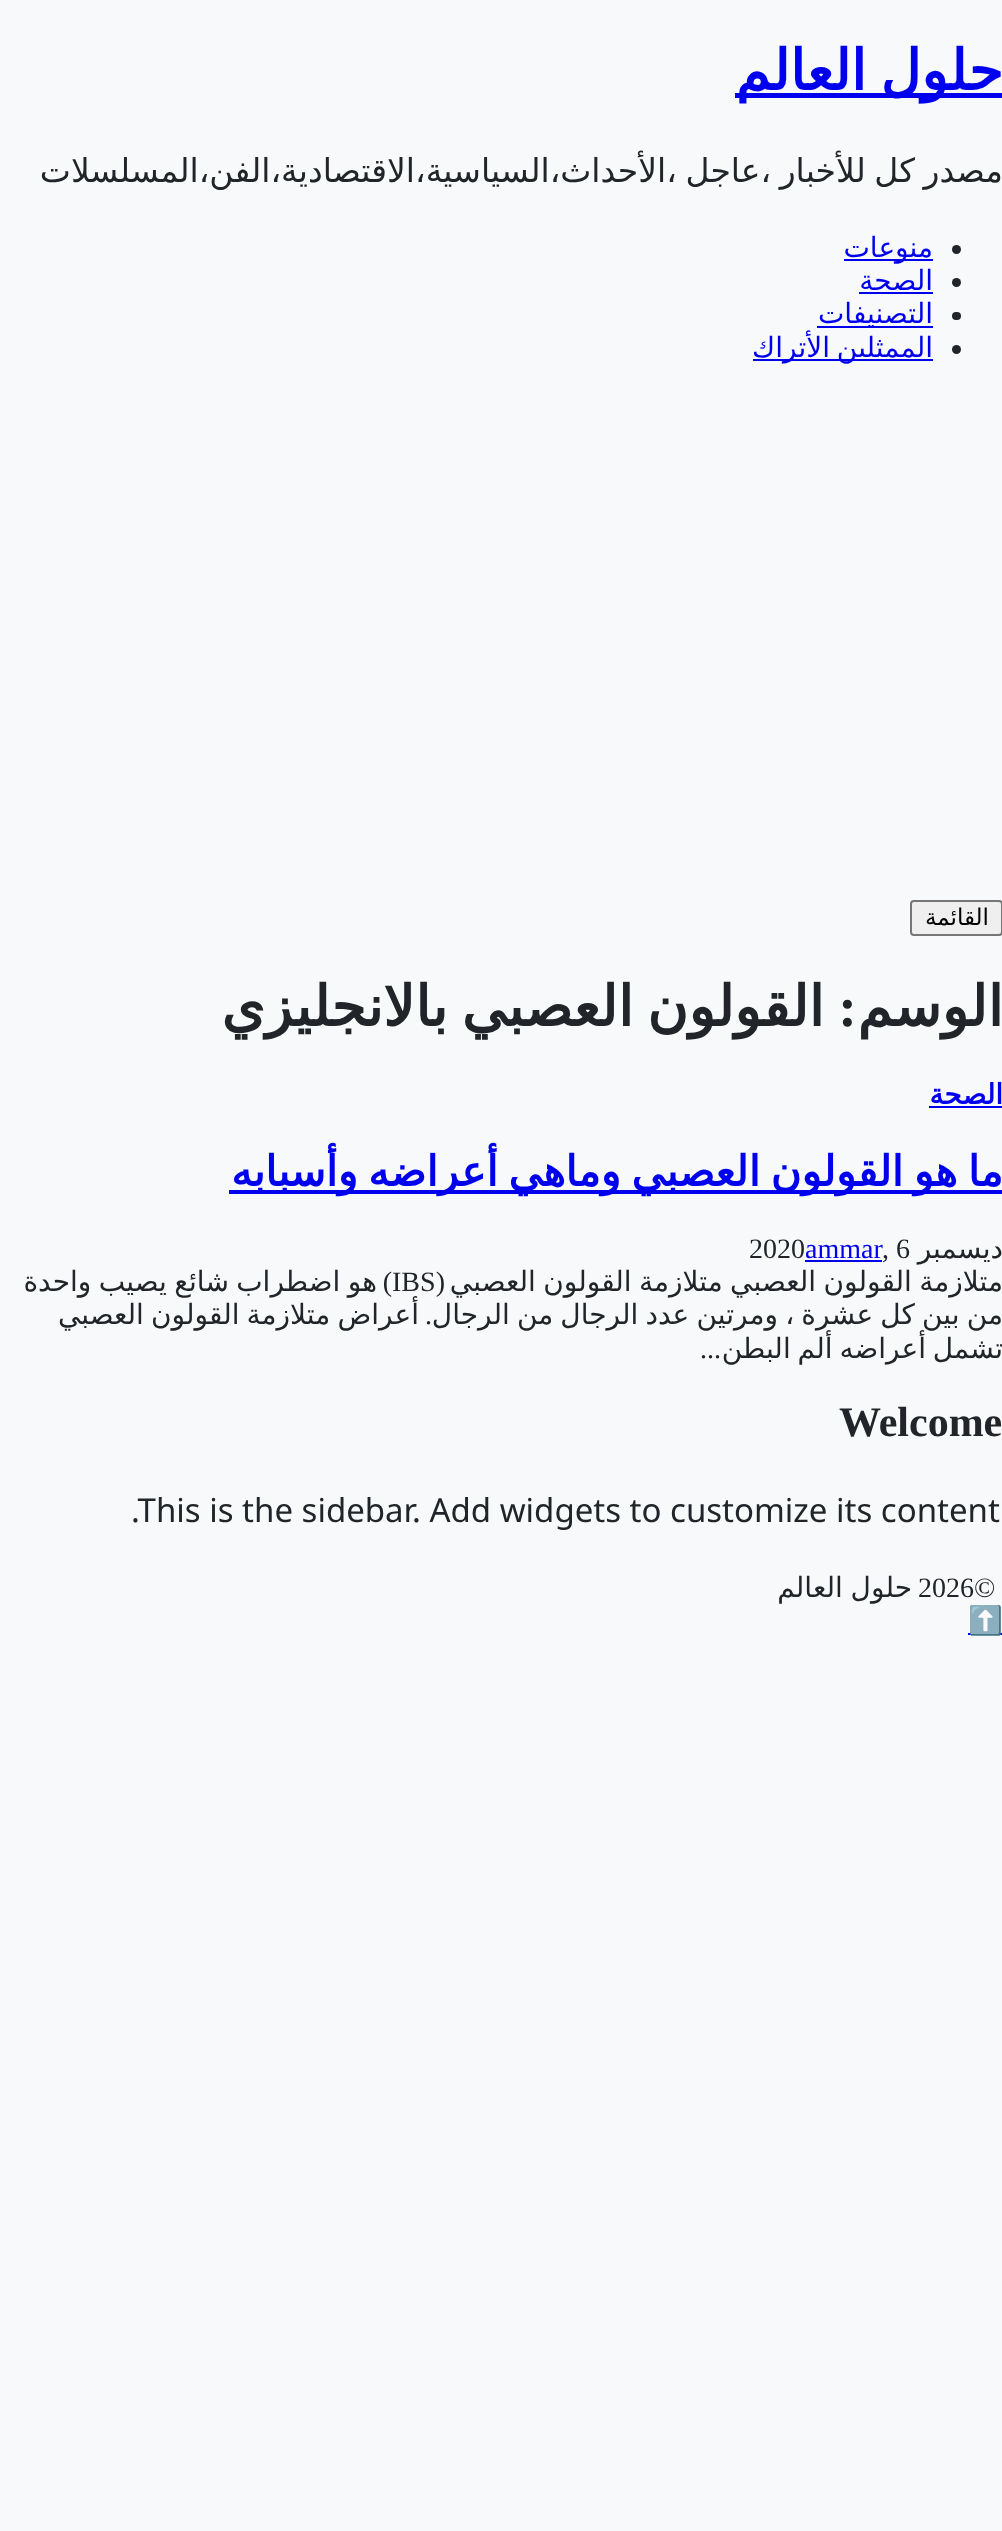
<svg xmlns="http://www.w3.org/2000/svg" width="1002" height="2531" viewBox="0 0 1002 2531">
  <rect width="100%" height="100%" fill="#f8f9fa"/>
  <rect x="735" y="93" width="267" height="5" fill="#0000ee"/>
  <text x="1003" y="90" word-spacing="-4" font-family="DejaVu Sans" font-size="56" font-weight="bold" direction="rtl" fill="#0000ee">حلول العالم</text>
  <text x="1003" y="182" word-spacing="-2" font-family="DejaVu Sans" font-size="33" direction="rtl" fill="#212529">مصدر كل للأخبار ،عاجل ،الأحداث،السياسية،الاقتصادية،الفن،المسلسلات</text>
  <circle cx="956.5" cy="249.5" r="4.5" fill="#212529"/>
  <rect x="844" y="259" width="89" height="2" fill="#0000ee"/>
  <text x="933" y="257" font-family="DejaVu Sans" font-size="28" direction="rtl" fill="#0000ee">منوعات</text>
  <circle cx="956.5" cy="282.5" r="4.5" fill="#212529"/>
  <text x="933" y="290" font-family="DejaVu Sans" font-size="28" direction="rtl" fill="#0000ee">الصحة</text>
  <rect x="859" y="292" width="74" height="2" fill="#0000ee"/>
  <rect x="952" y="312" width="9" height="8" rx="4" fill="#212529"/>
  <rect x="817" y="326" width="116" height="2" fill="#0000ee"/>
  <text x="933" y="323" font-family="DejaVu Sans" font-size="28" direction="rtl" fill="#0000ee">التصنيفات</text>
  <circle cx="956.5" cy="349.5" r="4.5" fill="#212529"/>
  <rect x="753" y="359" width="180" height="2" fill="#0000ee"/>
  <text x="933" y="357" word-spacing="-2" font-family="DejaVu Sans" font-size="28" direction="rtl" fill="#0000ee">الممثلين الأتراك</text>
  <rect x="911" y="901" width="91" height="34" rx="3" fill="#efefef" stroke="#767676" stroke-width="2"/>
  <text x="989" y="925" font-family="DejaVu Sans" font-size="23" direction="rtl" fill="#000000">القائمة</text>
  <text x="1003" y="1026" font-family="DejaVu Sans" font-size="56" font-weight="bold" direction="rtl" fill="#212529">الوسم</text>
  <text x="857" y="1026" font-family="Liberation Serif" font-size="56" font-weight="bold" direction="rtl" fill="#212529">:</text>
  <text x="824" y="1026" word-spacing="-4" font-family="DejaVu Sans" font-size="56" font-weight="bold" direction="rtl" fill="#212529">القولون العصبي بالانجليزي</text>
  <text x="1003" y="1104" font-family="DejaVu Sans" font-size="28" font-weight="bold" direction="rtl" fill="#0000ee">الصحة</text>
  <rect x="929" y="1106" width="73" height="2" fill="#0000ee"/>
  <rect x="229" y="1190" width="773" height="4" fill="#0000ee"/>
  <text x="1003" y="1186" word-spacing="-3" font-family="DejaVu Sans" font-size="42" font-weight="bold" direction="rtl" fill="#0000ee">ما هو القولون العصبي وماهي أعراضه وأسبابه</text>
  <text x="1003" y="1258" font-family="DejaVu Sans" font-size="28" direction="rtl" fill="#212529">ديسمبر</text>
  <text x="882" y="1258" font-family="Liberation Serif" font-size="28" fill="#212529">, 6</text>
  <text x="805" y="1258" font-family="Liberation Serif" font-size="28" fill="#0000ee">ammar</text>
  <rect x="805" y="1260" width="77" height="2" fill="#0000ee"/>
  <text x="749" y="1258" font-family="Liberation Serif" font-size="28" fill="#212529">2020</text>
  <text x="1003" y="1291" word-spacing="-1.5" font-family="DejaVu Sans" font-size="28" direction="rtl" fill="#212529">متلازمة القولون العصبي متلازمة القولون العصبي</text>
  <text x="445" y="1291" font-family="Liberation Serif" font-size="28" direction="rtl" fill="#212529">(</text>
  <text x="392" y="1291" font-family="Liberation Serif" font-size="28" fill="#212529">IBS</text>
  <text x="392" y="1291" font-family="Liberation Serif" font-size="28" direction="rtl" fill="#212529">)</text>
  <text x="377" y="1291" word-spacing="-1.5" font-family="DejaVu Sans" font-size="28" direction="rtl" fill="#212529">هو اضطراب شائع يصيب واحدة</text>
  <text x="1003" y="1324" word-spacing="-1.75" font-family="DejaVu Sans" font-size="28" direction="rtl" fill="#212529">من بين كل عشرة ، ومرتين عدد الرجال من الرجال</text>
  <text x="432" y="1324" font-family="Liberation Serif" font-size="28" direction="rtl" fill="#212529">.</text>
  <text x="419" y="1324" word-spacing="-1.75" font-family="DejaVu Sans" font-size="28" direction="rtl" fill="#212529">أعراض متلازمة القولون العصبي</text>
  <text x="1003" y="1358" word-spacing="-2" font-family="DejaVu Sans" font-size="28" direction="rtl" fill="#212529">تشمل أعراضه ألم البطن</text>
  <text x="721" y="1358" font-family="Liberation Serif" font-size="28" direction="rtl" fill="#212529">...</text>
  <text x="839" y="1436" font-family="Liberation Serif" font-size="42" font-weight="bold" fill="#212529">Welcome</text>
  <text x="131" y="1522" font-family="Noto Sans" font-size="33" fill="#212529">.This is the sidebar. Add widgets to customize its content</text>
  <text x="918" y="1597" font-family="Liberation Serif" font-size="28" fill="#212529">2026©</text>
  <text x="912" y="1597" word-spacing="-1" font-family="DejaVu Sans" font-size="28" direction="rtl" fill="#212529">حلول العالم</text>
  <rect x="968" y="1633" width="34" height="2" fill="#0000ee"/>
  <text x="968" y="1630" font-family="Noto Color Emoji" font-size="28" fill="#0000ee">⬆️</text>
</svg>
